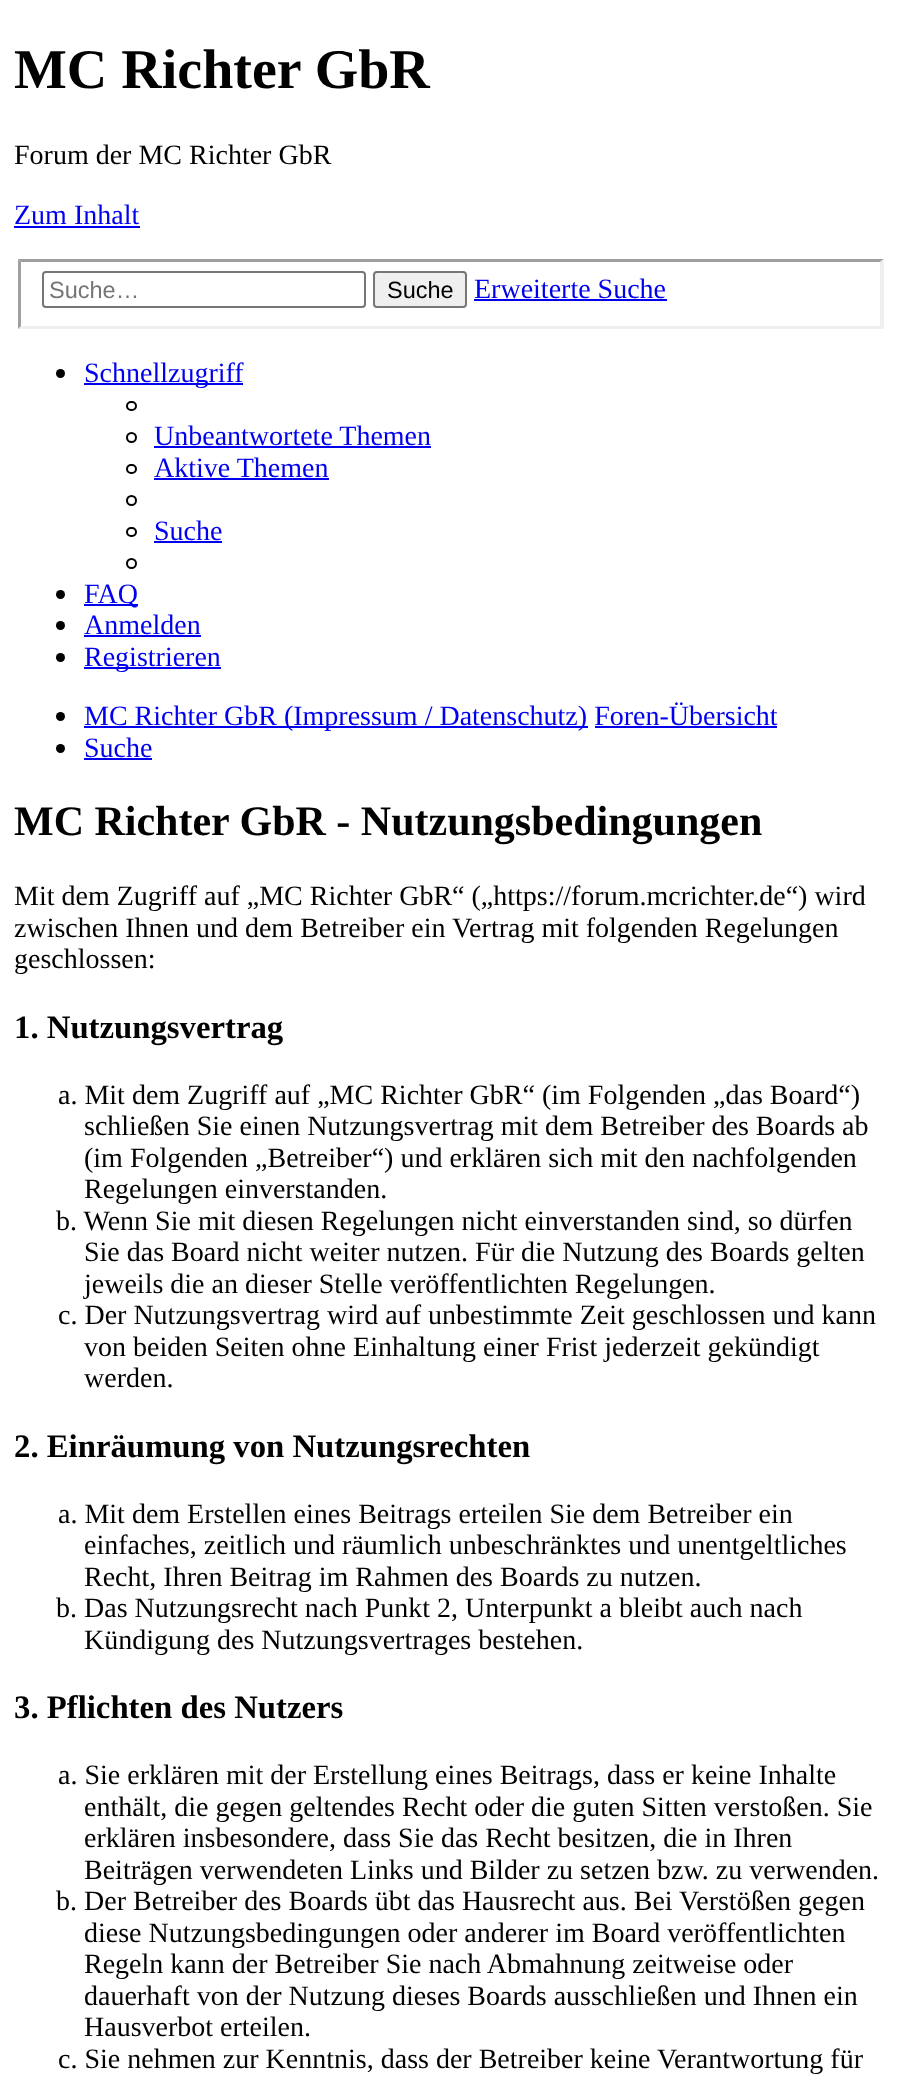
<svg xmlns="http://www.w3.org/2000/svg" width="901" height="2092" viewBox="0 0 901 2092">
  <rect width="100%" height="100%" fill="#ffffff"/>
  <text x="14" y="88" font-family="Liberation Serif" font-size="56" font-weight="bold" fill="#000000">MC Richter GbR</text>
  <text x="14" y="164" font-family="Liberation Serif" font-size="28" fill="#000000">Forum der MC Richter GbR</text>
  <text x="14" y="224" font-family="Liberation Serif" font-size="28" fill="#0000ee">Zum Inhalt</text>
  <rect x="14" y="226" width="126" height="2" fill="#0000ee"/>
  <path d="M18 259H884L880 262H21Z" fill="#9f9f9f"/>
  <path d="M884 259V329L880 326V262Z" fill="#efefef"/>
  <path d="M884 329H18L21 326H880Z" fill="#efefef"/>
  <path d="M18 329V259L21 262V326Z" fill="#9f9f9f"/>
  <rect x="43" y="272" width="322" height="35" rx="3" fill="none" stroke="#767676" stroke-width="2"/>
  <text x="49" y="298" font-family="Liberation Sans" font-size="23.5" fill="#757575">Suche…</text>
  <rect x="374" y="272" width="92" height="35" rx="3" fill="#efefef" stroke="#767676" stroke-width="2"/>
  <text x="387" y="298" font-family="Liberation Sans" font-size="23.5" fill="#000000">Suche</text>
  <text x="474" y="298" font-family="Liberation Serif" font-size="28" fill="#0000ee">Erweiterte Suche</text>
  <rect x="474" y="299" width="193" height="2" fill="#0000ee"/>
  <circle cx="60.5" cy="373.5" r="4.5" fill="#000000"/>
  <rect x="84" y="383" width="159" height="2" fill="#0000ee"/>
  <text x="84" y="382" font-family="Liberation Serif" font-size="28" fill="#0000ee">Schnellzugriff</text>
  <rect x="127" y="402" width="9" height="8" rx="4" fill="none" stroke="#000000" stroke-width="2"/>
  <circle cx="131.5" cy="437.5" r="4.5" fill="none" stroke="#000000" stroke-width="2"/>
  <text x="154" y="445" font-family="Liberation Serif" font-size="28" fill="#0000ee">Unbeantwortete Themen</text>
  <rect x="154" y="446" width="277" height="2" fill="#0000ee"/>
  <rect x="127" y="465" width="9" height="8" rx="4" fill="none" stroke="#000000" stroke-width="2"/>
  <text x="154" y="477" font-family="Liberation Serif" font-size="28" fill="#0000ee">Aktive Themen</text>
  <rect x="154" y="478" width="175" height="2" fill="#0000ee"/>
  <circle cx="131.5" cy="500.5" r="4.5" fill="none" stroke="#000000" stroke-width="2"/>
  <rect x="127" y="528" width="9" height="8" rx="4" fill="none" stroke="#000000" stroke-width="2"/>
  <text x="154" y="540" font-family="Liberation Serif" font-size="28" fill="#0000ee">Suche</text>
  <rect x="154" y="541" width="68" height="2" fill="#0000ee"/>
  <circle cx="131.5" cy="563.5" r="4.5" fill="none" stroke="#000000" stroke-width="2"/>
  <circle cx="60.5" cy="594.5" r="4.5" fill="#000000"/>
  <rect x="84" y="604" width="54" height="2" fill="#0000ee"/>
  <text x="84" y="603" font-family="Liberation Serif" font-size="28" fill="#0000ee">FAQ</text>
  <circle cx="60.5" cy="625.5" r="4.5" fill="#000000"/>
  <text x="84" y="634" font-family="Liberation Serif" font-size="28" fill="#0000ee">Anmelden</text>
  <rect x="84" y="635" width="117" height="2" fill="#0000ee"/>
  <circle cx="60.5" cy="657.5" r="4.5" fill="#000000"/>
  <rect x="84" y="667" width="137" height="2" fill="#0000ee"/>
  <text x="84" y="666" font-family="Liberation Serif" font-size="28" fill="#0000ee">Registrieren</text>
  <circle cx="60.5" cy="716.5" r="4.5" fill="#000000"/>
  <rect x="84" y="726" width="504" height="2" fill="#0000ee"/>
  <text x="84" y="725" font-family="Liberation Serif" font-size="28" fill="#0000ee">MC Richter GbR (Impressum / Datenschutz) Foren-Übersicht</text>
  <rect x="595" y="726" width="182" height="2" fill="#0000ee"/>
  <circle cx="60.5" cy="748.5" r="4.5" fill="#000000"/>
  <text x="84" y="757" font-family="Liberation Serif" font-size="28" fill="#0000ee">Suche</text>
  <rect x="84" y="758" width="68" height="2" fill="#0000ee"/>
  <text x="14" y="835" font-family="Liberation Serif" font-size="42" font-weight="bold" fill="#000000">MC Richter GbR - Nutzungsbedingungen</text>
  <text x="14" y="905" font-family="Liberation Serif" font-size="28" fill="#000000">Mit dem Zugriff auf „MC Richter GbR“ („https://forum.mcrichter.de“) wird</text>
  <text x="14" y="937" font-family="Liberation Serif" font-size="28" fill="#000000">zwischen Ihnen und dem Betreiber ein Vertrag mit folgenden Regelungen</text>
  <text x="14" y="968" font-family="Liberation Serif" font-size="28" fill="#000000">geschlossen:</text>
  <text x="14" y="1038" font-family="Liberation Serif" font-size="32.75" font-weight="bold" fill="#000000">1. Nutzungsvertrag</text>
  <text x="58" y="1104" font-family="Liberation Serif" font-size="28" fill="#000000">a. Mit dem Zugriff auf „MC Richter GbR“ (im Folgenden „das Board“)</text>
  <text x="84" y="1135" font-family="Liberation Serif" font-size="28" fill="#000000">schließen Sie einen Nutzungsvertrag mit dem Betreiber des Boards ab</text>
  <text x="84" y="1167" font-family="Liberation Serif" font-size="28" fill="#000000">(im Folgenden „Betreiber“) und erklären sich mit den nachfolgenden</text>
  <text x="84" y="1198" font-family="Liberation Serif" font-size="28" fill="#000000">Regelungen einverstanden.</text>
  <text x="56" y="1230" font-family="Liberation Serif" font-size="28" fill="#000000">b. Wenn Sie mit diesen Regelungen nicht einverstanden sind, so dürfen</text>
  <text x="84" y="1261" font-family="Liberation Serif" font-size="28" fill="#000000">Sie das Board nicht weiter nutzen. Für die Nutzung des Boards gelten</text>
  <text x="84" y="1293" font-family="Liberation Serif" font-size="28" fill="#000000">jeweils die an dieser Stelle veröffentlichten Regelungen.</text>
  <text x="58" y="1324" font-family="Liberation Serif" font-size="28" fill="#000000">c. Der Nutzungsvertrag wird auf unbestimmte Zeit geschlossen und kann</text>
  <text x="84" y="1356" font-family="Liberation Serif" font-size="28" fill="#000000">von beiden Seiten ohne Einhaltung einer Frist jederzeit gekündigt</text>
  <text x="84" y="1387" font-family="Liberation Serif" font-size="28" fill="#000000">werden.</text>
  <text x="14" y="1457" font-family="Liberation Serif" font-size="32.75" font-weight="bold" fill="#000000">2. Einräumung von Nutzungsrechten</text>
  <text x="58" y="1523" font-family="Liberation Serif" font-size="28" fill="#000000">a. Mit dem Erstellen eines Beitrags erteilen Sie dem Betreiber ein</text>
  <text x="84" y="1554" font-family="Liberation Serif" font-size="28" fill="#000000">einfaches, zeitlich und räumlich unbeschränktes und unentgeltliches</text>
  <text x="84" y="1586" font-family="Liberation Serif" font-size="28" fill="#000000">Recht, Ihren Beitrag im Rahmen des Boards zu nutzen.</text>
  <text x="56" y="1617" font-family="Liberation Serif" font-size="28" fill="#000000">b. Das Nutzungsrecht nach Punkt 2, Unterpunkt a bleibt auch nach</text>
  <text x="84" y="1649" font-family="Liberation Serif" font-size="28" fill="#000000">Kündigung des Nutzungsvertrages bestehen.</text>
  <text x="14" y="1718" font-family="Liberation Serif" font-size="32.75" font-weight="bold" fill="#000000">3. Pflichten des Nutzers</text>
  <text x="58" y="1784" font-family="Liberation Serif" font-size="28" fill="#000000">a. Sie erklären mit der Erstellung eines Beitrags, dass er keine Inhalte</text>
  <text x="84" y="1816" font-family="Liberation Serif" font-size="28" fill="#000000">enthält, die gegen geltendes Recht oder die guten Sitten verstoßen. Sie</text>
  <text x="84" y="1847" font-family="Liberation Serif" font-size="28" fill="#000000">erklären insbesondere, dass Sie das Recht besitzen, die in Ihren</text>
  <text x="84" y="1879" font-family="Liberation Serif" font-size="28" fill="#000000">Beiträgen verwendeten Links und Bilder zu setzen bzw. zu verwenden.</text>
  <text x="56" y="1910" font-family="Liberation Serif" font-size="28" fill="#000000">b. Der Betreiber des Boards übt das Hausrecht aus. Bei Verstößen gegen</text>
  <text x="84" y="1942" font-family="Liberation Serif" font-size="28" fill="#000000">diese Nutzungsbedingungen oder anderer im Board veröffentlichten</text>
  <text x="84" y="1973" font-family="Liberation Serif" font-size="28" fill="#000000">Regeln kann der Betreiber Sie nach Abmahnung zeitweise oder</text>
  <text x="84" y="2005" font-family="Liberation Serif" font-size="28" fill="#000000">dauerhaft von der Nutzung dieses Boards ausschließen und Ihnen ein</text>
  <text x="84" y="2036" font-family="Liberation Serif" font-size="28" fill="#000000">Hausverbot erteilen.</text>
  <text x="58" y="2068" font-family="Liberation Serif" font-size="28" fill="#000000">c. Sie nehmen zur Kenntnis, dass der Betreiber keine Verantwortung für</text>
</svg>
